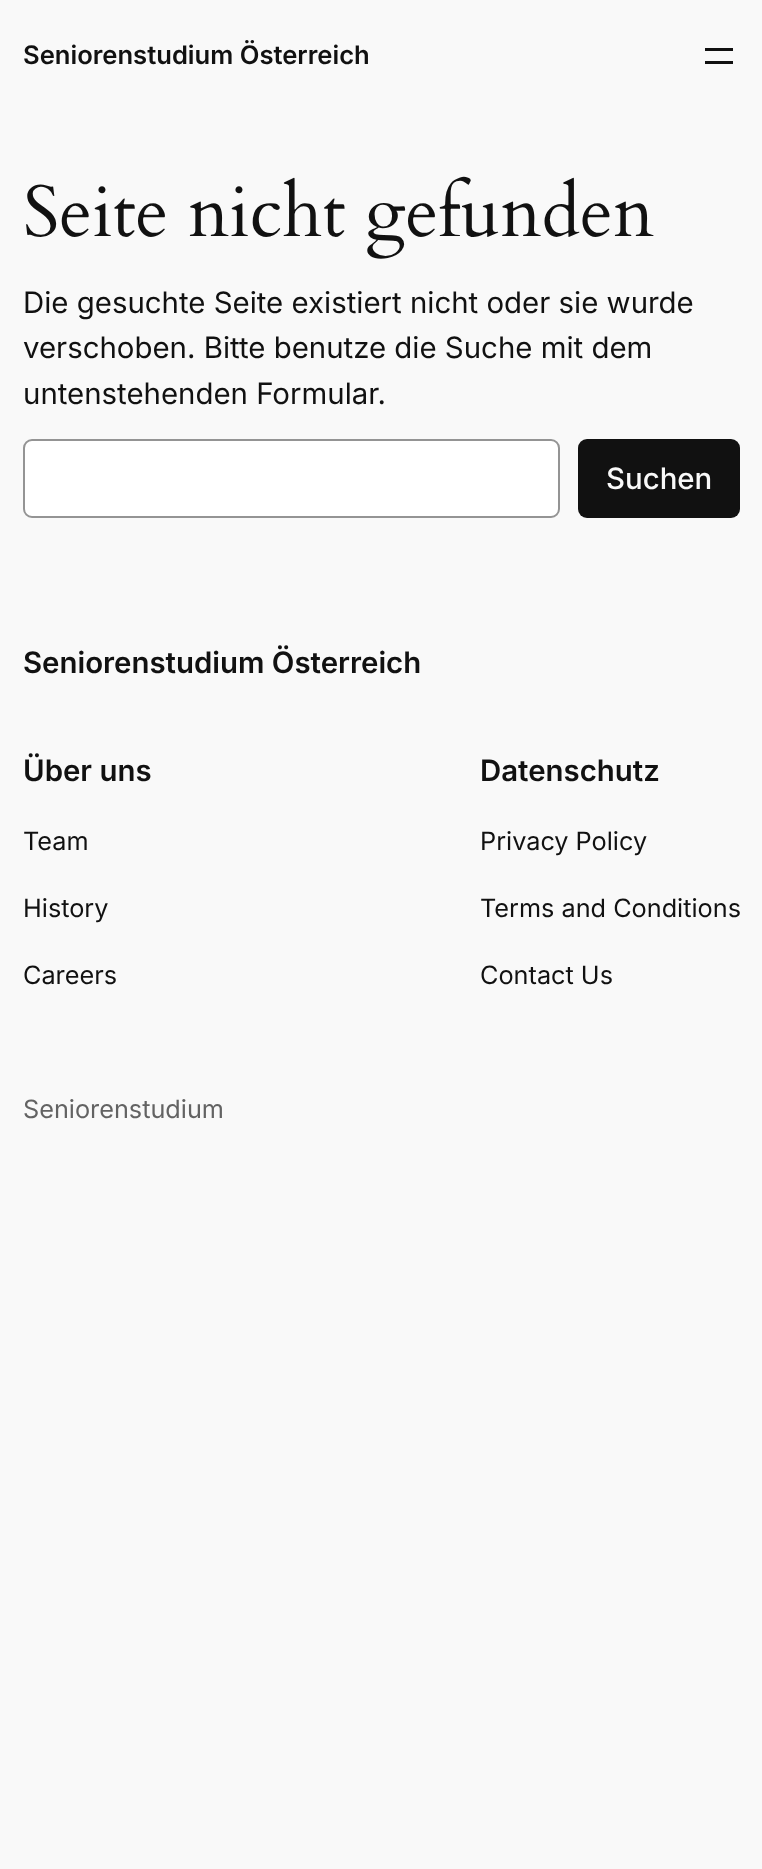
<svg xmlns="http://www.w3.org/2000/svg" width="762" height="1869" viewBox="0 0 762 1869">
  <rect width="100%" height="100%" fill="#f9f9f9"/>
  <text x="23" y="64" font-family="Inter" font-size="25.6" font-weight="600" fill="#111111">Seniorenstudium Österreich</text>
  <rect x="705" y="48" width="28" height="3" fill="#111111"/>
  <rect x="705" y="61" width="28" height="3" fill="#111111"/>
  <text x="23" y="236" font-family="Cardo" font-size="72.5" fill="#111111">Seite nicht gefunden</text>
  <text x="23" y="313" font-family="Inter" font-size="29.4" fill="#111111">Die gesuchte Seite existiert nicht oder sie wurde</text>
  <text x="23" y="358" font-family="Inter" font-size="29.4" fill="#111111">verschoben. Bitte benutze die Suche mit dem</text>
  <text x="23" y="404" font-family="Inter" font-size="29.4" fill="#111111">untenstehenden Formular.</text>
  <rect x="24" y="440" width="535" height="77" rx="8" fill="#ffffff" stroke="#949494" stroke-width="2"/>
  <rect x="578" y="439" width="162" height="79" rx="9" fill="#111111"/>
  <text x="606" y="489" font-family="Inter" font-size="29.4" font-weight="500" fill="#f9f9f9">Suchen</text>
  <text x="23" y="673" font-family="Inter" font-size="29.4" font-weight="600" fill="#111111">Seniorenstudium Österreich</text>
  <text x="23" y="781" font-family="Inter" font-size="29.4" font-weight="600" fill="#111111">Über uns</text>
  <text x="23" y="850" font-family="Inter" font-size="25.25" fill="#111111">Team</text>
  <text x="23" y="917" font-family="Inter" font-size="25.25" fill="#111111">History</text>
  <text x="23" y="984" font-family="Inter" font-size="25.25" fill="#111111">Careers</text>
  <text x="480" y="781" font-family="Inter" font-size="29.4" font-weight="600" fill="#111111">Datenschutz</text>
  <text x="480" y="850" font-family="Inter" font-size="25.25" fill="#111111">Privacy Policy</text>
  <text x="480" y="917" font-family="Inter" font-size="25.25" fill="#111111">Terms and Conditions</text>
  <text x="480" y="984" font-family="Inter" font-size="25.25" fill="#111111">Contact Us</text>
  <text x="23" y="1118" font-family="Inter" font-size="25.25" fill="#636363">Seniorenstudium</text>
</svg>
